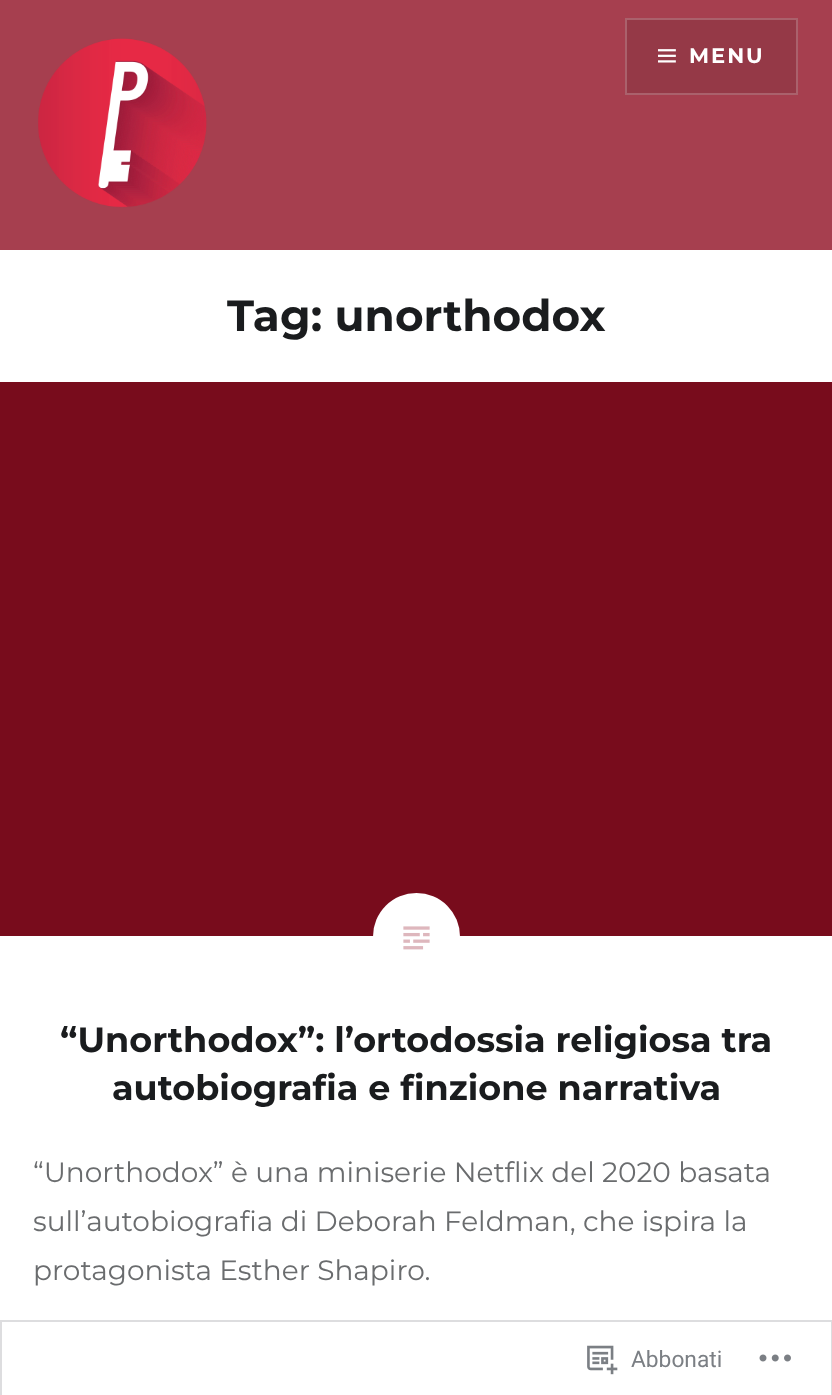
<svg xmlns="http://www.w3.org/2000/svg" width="832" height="1395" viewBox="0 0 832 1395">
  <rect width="100%" height="100%" fill="#ffffff"/>
  <rect x="0" y="0" width="832" height="250" fill="#a63f4f"/>
  <image x="38" y="38" width="169" height="170" href="img1.png"/>
  <rect x="626" y="19" width="171" height="75" fill="#953947" stroke="#aa616c" stroke-width="2"/>
  <image x="658" y="49" width="18" height="14" href="img2.png"/>
  <text x="689" y="63" font-family="Montserrat" font-size="21" font-weight="bold" letter-spacing="2" fill="#ffffff">MENU</text>
  <text x="227" y="331" font-family="Montserrat" font-size="43.75" font-weight="bold" fill="#1a1c1e">Tag: unorthodox</text>
  <rect x="0" y="382" width="832" height="554" fill="#780c1c"/>
  <circle cx="416.5" cy="936.5" r="43.5" fill="#ffffff"/>
  <image x="403" y="926" width="27" height="24" href="img3.png"/>
  <text x="60" y="1052" font-family="Montserrat" font-size="35" font-weight="bold" fill="#1a1c1e">“Unorthodox”: l’ortodossia religiosa tra</text>
  <text x="112" y="1100" font-family="Montserrat" font-size="35" font-weight="bold" fill="#1a1c1e">autobiografia e finzione narrativa</text>
  <text x="33" y="1182" font-family="Montserrat" font-size="28" fill="#6a6c6e">“Unorthodox” è una miniserie Netflix del 2020 basata</text>
  <text x="33" y="1231" font-family="Montserrat" font-size="28" fill="#6a6c6e">sull’autobiografia di Deborah Feldman, che ispira la</text>
  <text x="33" y="1280" font-family="Montserrat" font-size="28" fill="#6a6c6e">protagonista Esther Shapiro.</text>
  <rect x="1" y="1321" width="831" height="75" fill="none" stroke="#dcdcde" stroke-opacity="0.98" stroke-width="2"/>
  <image x="587" y="1345" width="31" height="30" href="img4.png"/>
  <text x="631" y="1367" font-family="Roboto" font-size="22.75" fill="#7b7f84">Abbonati</text>
  <image x="759" y="1354" width="32" height="8" href="img5.png"/>
</svg>
